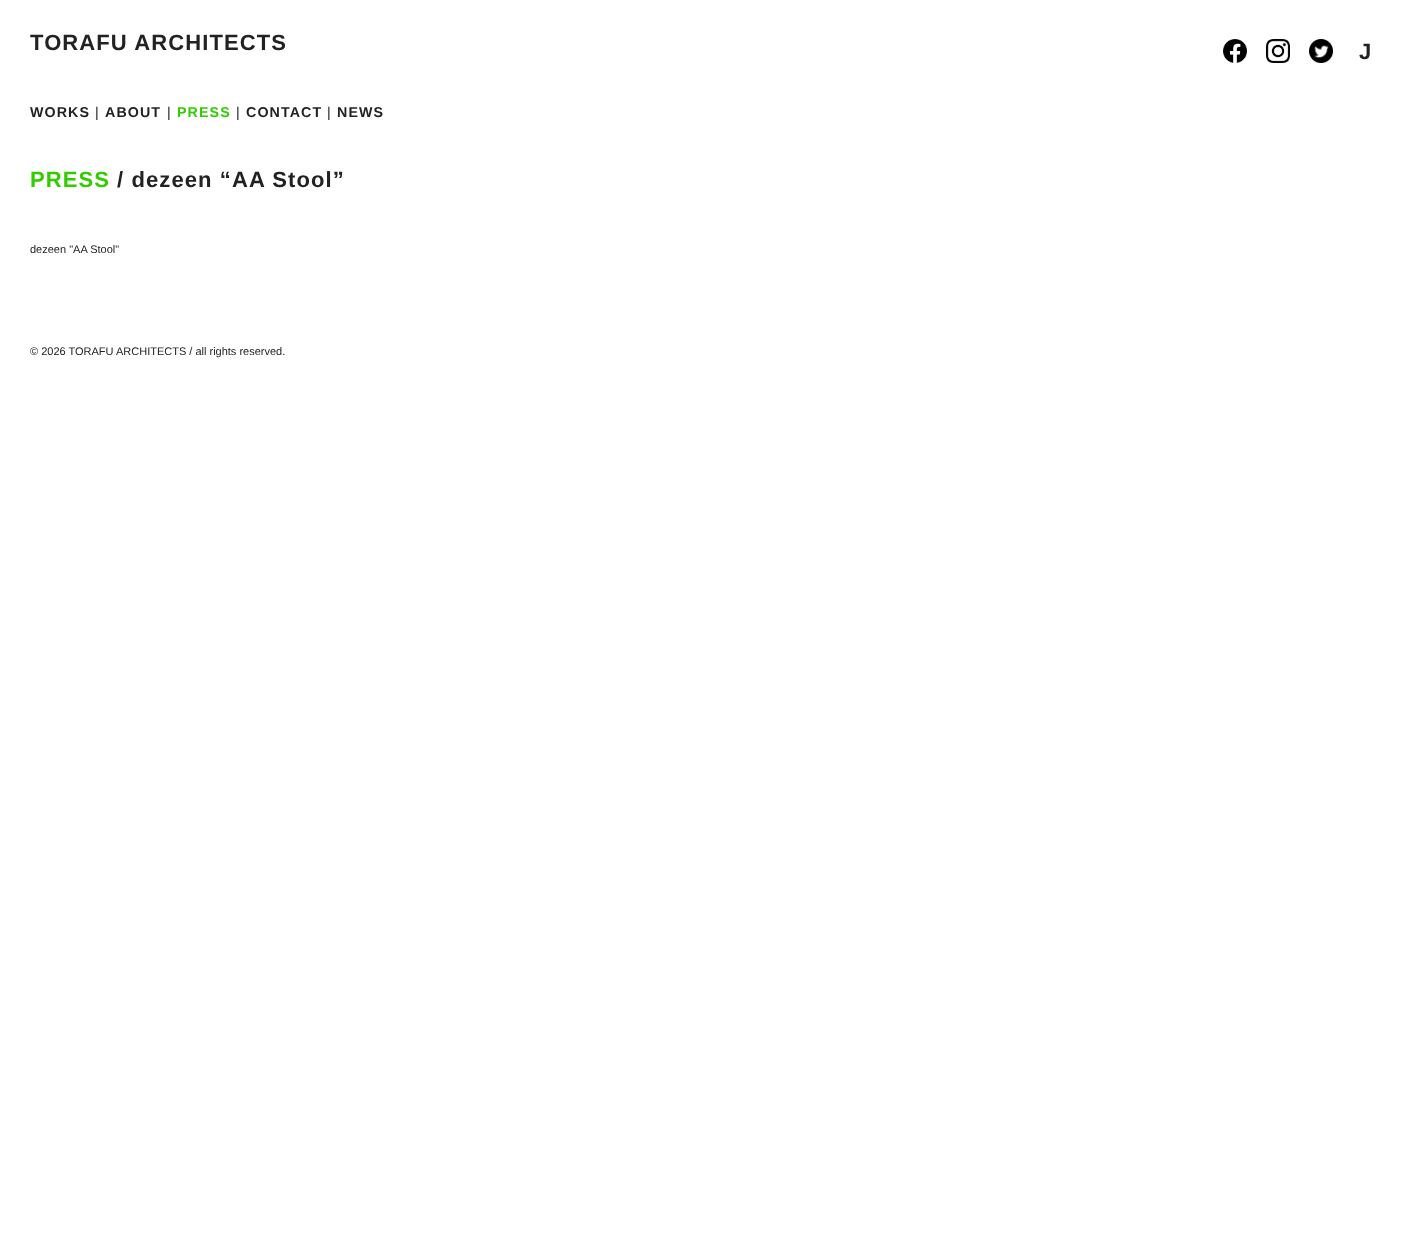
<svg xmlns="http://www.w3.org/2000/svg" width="1402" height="1235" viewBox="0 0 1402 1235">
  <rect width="100%" height="100%" fill="#ffffff"/>
  <text x="30" y="50" font-family="Liberation Sans" font-size="22" font-weight="bold" letter-spacing="1.1" fill="#222222">TORAFU ARCHITECTS</text>
  <image x="1223" y="39" width="24" height="24" href="img1.png"/>
  <image x="1266" y="39" width="24" height="24" href="img2.png"/>
  <image x="1309" y="39" width="24" height="24" href="img3.png"/>
  <text x="1359" y="59" font-family="Liberation Sans" font-size="22" font-weight="bold" letter-spacing="1.1" fill="#222222">J</text>
  <text x="30" y="117" font-family="Liberation Sans" font-size="14.25" font-weight="bold" letter-spacing="1.1" fill="#222222">WORKS</text>
  <text x="95" y="117" font-family="Liberation Sans" font-size="14.25" letter-spacing="1.1" fill="#222222">|</text>
  <text x="105" y="117" font-family="Liberation Sans" font-size="14.25" font-weight="bold" letter-spacing="1.1" fill="#222222">ABOUT</text>
  <text x="167" y="117" font-family="Liberation Sans" font-size="14.25" letter-spacing="1.1" fill="#222222">|</text>
  <text x="177" y="117" font-family="Liberation Sans" font-size="14.25" font-weight="bold" letter-spacing="1.1" fill="#33cc00">PRESS</text>
  <text x="236" y="117" font-family="Liberation Sans" font-size="14.25" letter-spacing="1.1" fill="#222222">|</text>
  <text x="246" y="117" font-family="Liberation Sans" font-size="14.25" font-weight="bold" letter-spacing="1.1" fill="#222222">CONTACT</text>
  <text x="327" y="117" font-family="Liberation Sans" font-size="14.25" letter-spacing="1.1" fill="#222222">|</text>
  <text x="337" y="117" font-family="Liberation Sans" font-size="14.25" font-weight="bold" letter-spacing="1.1" fill="#222222">NEWS</text>
  <text x="30" y="187" font-family="Liberation Sans" font-size="22" font-weight="bold" letter-spacing="1.1" fill="#33cc00">PRESS</text>
  <text x="117" y="187" font-family="Liberation Sans" font-size="22" font-weight="bold" letter-spacing="1.1" fill="#222222">/ dezeen “AA Stool”</text>
  <text x="30" y="253" font-family="Liberation Sans" font-size="11" fill="#222222">dezeen "AA Stool"</text>
  <text x="30" y="355" font-family="Liberation Sans" font-size="11" fill="#222222">© 2026 TORAFU ARCHITECTS / all rights reserved.</text>
</svg>
